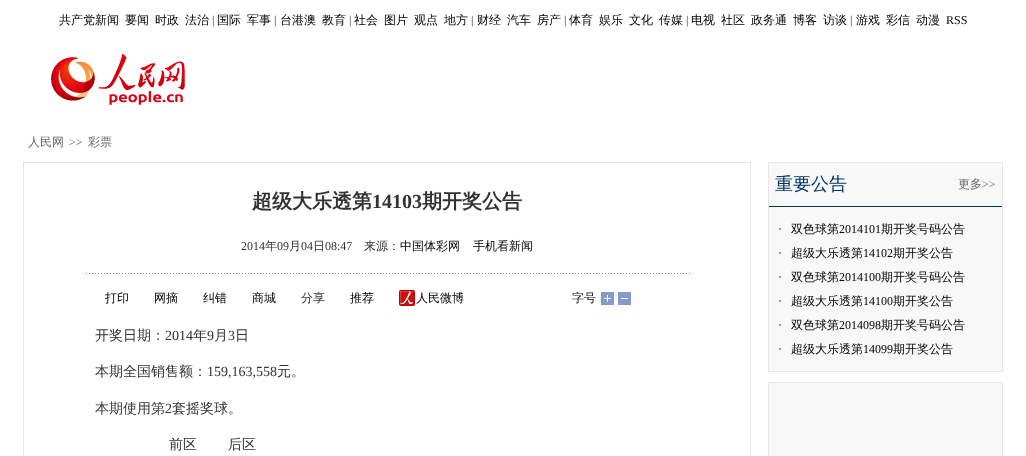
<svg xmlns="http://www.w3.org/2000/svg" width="1026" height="456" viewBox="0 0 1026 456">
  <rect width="100%" height="100%" fill="#ffffff"/>
  <text x="59" y="24" font-family="WenQuanYi Zen Hei" font-size="12" font-weight="500" fill="#000000">共产党新闻</text>
  <text x="125" y="24" font-family="WenQuanYi Zen Hei" font-size="12" font-weight="500" fill="#000000">要闻</text>
  <text x="155" y="24" font-family="WenQuanYi Zen Hei" font-size="12" font-weight="500" fill="#000000">时政</text>
  <text x="185" y="24" font-family="WenQuanYi Zen Hei" font-size="12" font-weight="500" fill="#000000">法治</text>
  <text x="212" y="24" font-family="Liberation Serif" font-size="12" fill="#333333">|</text>
  <text x="217" y="24" font-family="WenQuanYi Zen Hei" font-size="12" font-weight="500" fill="#000000">国际</text>
  <text x="247" y="24" font-family="WenQuanYi Zen Hei" font-size="12" font-weight="500" fill="#000000">军事</text>
  <text x="274" y="24" font-family="Liberation Serif" font-size="12" fill="#333333">|</text>
  <text x="280" y="24" font-family="WenQuanYi Zen Hei" font-size="12" font-weight="500" fill="#000000">台港澳</text>
  <text x="322" y="24" font-family="WenQuanYi Zen Hei" font-size="12" font-weight="500" fill="#000000">教育</text>
  <text x="349" y="24" font-family="Liberation Serif" font-size="12" fill="#333333">|</text>
  <text x="354" y="24" font-family="WenQuanYi Zen Hei" font-size="12" font-weight="500" fill="#000000">社会</text>
  <text x="384" y="24" font-family="WenQuanYi Zen Hei" font-size="12" font-weight="500" fill="#000000">图片</text>
  <text x="414" y="24" font-family="WenQuanYi Zen Hei" font-size="12" font-weight="500" fill="#000000">观点</text>
  <text x="444" y="24" font-family="WenQuanYi Zen Hei" font-size="12" font-weight="500" fill="#000000">地方</text>
  <text x="471" y="24" font-family="Liberation Serif" font-size="12" fill="#333333">|</text>
  <text x="477" y="24" font-family="WenQuanYi Zen Hei" font-size="12" font-weight="500" fill="#000000">财经</text>
  <text x="507" y="24" font-family="WenQuanYi Zen Hei" font-size="12" font-weight="500" fill="#000000">汽车</text>
  <text x="537" y="24" font-family="WenQuanYi Zen Hei" font-size="12" font-weight="500" fill="#000000">房产</text>
  <text x="564" y="24" font-family="Liberation Serif" font-size="12" fill="#333333">|</text>
  <text x="569" y="24" font-family="WenQuanYi Zen Hei" font-size="12" font-weight="500" fill="#000000">体育</text>
  <text x="599" y="24" font-family="WenQuanYi Zen Hei" font-size="12" font-weight="500" fill="#000000">娱乐</text>
  <text x="629" y="24" font-family="WenQuanYi Zen Hei" font-size="12" font-weight="500" fill="#000000">文化</text>
  <text x="659" y="24" font-family="WenQuanYi Zen Hei" font-size="12" font-weight="500" fill="#000000">传媒</text>
  <text x="686" y="24" font-family="Liberation Serif" font-size="12" fill="#333333">|</text>
  <text x="691" y="24" font-family="WenQuanYi Zen Hei" font-size="12" font-weight="500" fill="#000000">电视</text>
  <text x="721" y="24" font-family="WenQuanYi Zen Hei" font-size="12" font-weight="500" fill="#000000">社区</text>
  <text x="751" y="24" font-family="WenQuanYi Zen Hei" font-size="12" font-weight="500" fill="#000000">政务通</text>
  <text x="793" y="24" font-family="WenQuanYi Zen Hei" font-size="12" font-weight="500" fill="#000000">博客</text>
  <text x="823" y="24" font-family="WenQuanYi Zen Hei" font-size="12" font-weight="500" fill="#000000">访谈</text>
  <text x="850" y="24" font-family="Liberation Serif" font-size="12" fill="#333333">|</text>
  <text x="856" y="24" font-family="WenQuanYi Zen Hei" font-size="12" font-weight="500" fill="#000000">游戏</text>
  <text x="886" y="24" font-family="WenQuanYi Zen Hei" font-size="12" font-weight="500" fill="#000000">彩信</text>
  <text x="916" y="24" font-family="WenQuanYi Zen Hei" font-size="12" font-weight="500" fill="#000000">动漫</text>
  <text x="946" y="24" font-family="Liberation Serif" font-size="12" fill="#000000">RSS</text>
  <image x="51" y="54" width="134" height="51" href="img1.png"/>
  <text x="28" y="146" font-family="WenQuanYi Zen Hei" font-size="12" font-weight="500" fill="#666666">人民网</text>
  <text x="69" y="146" font-family="Liberation Serif" font-size="12" fill="#666666">&gt;&gt;</text>
  <text x="88" y="146" font-family="WenQuanYi Zen Hei" font-size="12" font-weight="500" fill="#666666">彩票</text>
  <rect x="23.5" y="162.5" width="727" height="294" fill="none" stroke="#e6e6e6"/>
  <text x="252" y="208" font-family="WenQuanYi Zen Hei" font-size="20" font-weight="bold" fill="#333333">超级大乐透第</text>
  <text x="372" y="208" font-family="Liberation Serif" font-size="20" font-weight="bold" fill="#333333">14103</text>
  <text x="422" y="208" font-family="WenQuanYi Zen Hei" font-size="20" font-weight="bold" fill="#333333">期开奖公告</text>
  <text x="241" y="250" font-family="Liberation Serif" font-size="12" fill="#333333">2014</text>
  <text x="265" y="250" font-family="WenQuanYi Zen Hei" font-size="12" font-weight="500" fill="#333333">年</text>
  <text x="277" y="250" font-family="Liberation Serif" font-size="12" fill="#333333">09</text>
  <text x="289" y="250" font-family="WenQuanYi Zen Hei" font-size="12" font-weight="500" fill="#333333">月</text>
  <text x="301" y="250" font-family="Liberation Serif" font-size="12" fill="#333333">04</text>
  <text x="313" y="250" font-family="WenQuanYi Zen Hei" font-size="12" font-weight="500" fill="#333333">日</text>
  <text x="325" y="250" font-family="Liberation Serif" font-size="12" fill="#333333">08:47</text>
  <text x="364" y="250" font-family="WenQuanYi Zen Hei" font-size="12" font-weight="500" fill="#333333">来源：</text>
  <text x="400" y="250" font-family="WenQuanYi Zen Hei" font-size="12" font-weight="500" fill="#000000">中国体彩网</text>
  <text x="473" y="250" font-family="WenQuanYi Zen Hei" font-size="12" font-weight="500" fill="#000000">手机看新闻</text>
  <image x="85" y="273" width="605" height="1" href="img2.png"/>
  <text x="105" y="302" font-family="WenQuanYi Zen Hei" font-size="12" font-weight="500" fill="#000000">打印</text>
  <text x="154" y="302" font-family="WenQuanYi Zen Hei" font-size="12" font-weight="500" fill="#000000">网摘</text>
  <text x="203" y="302" font-family="WenQuanYi Zen Hei" font-size="12" font-weight="500" fill="#000000">纠错</text>
  <text x="252" y="302" font-family="WenQuanYi Zen Hei" font-size="12" font-weight="500" fill="#000000">商城</text>
  <text x="301" y="302" font-family="WenQuanYi Zen Hei" font-size="12" font-weight="500" fill="#333333">分享</text>
  <text x="350" y="302" font-family="WenQuanYi Zen Hei" font-size="12" font-weight="500" fill="#000000">推荐</text>
  <image x="399" y="290" width="65" height="16" href="img3.png"/>
  <text x="572" y="302" font-family="WenQuanYi Zen Hei" font-size="12" font-weight="500" fill="#000000">字号</text>
  <image x="601" y="292" width="13" height="13" href="img4.png"/>
  <image x="618" y="292" width="13" height="13" href="img5.png"/>
  <text x="95" y="340" font-family="WenQuanYi Zen Hei" font-size="14" font-weight="500" fill="#333333">开奖日期：</text>
  <text x="165" y="340" font-family="Liberation Serif" font-size="14" fill="#333333">2014</text>
  <text x="193" y="340" font-family="WenQuanYi Zen Hei" font-size="14" font-weight="500" fill="#333333">年</text>
  <text x="207" y="340" font-family="Liberation Serif" font-size="14" fill="#333333">9</text>
  <text x="214" y="340" font-family="WenQuanYi Zen Hei" font-size="14" font-weight="500" fill="#333333">月</text>
  <text x="228" y="340" font-family="Liberation Serif" font-size="14" fill="#333333">3</text>
  <text x="235" y="340" font-family="WenQuanYi Zen Hei" font-size="14" font-weight="500" fill="#333333">日</text>
  <text x="95" y="376" font-family="WenQuanYi Zen Hei" font-size="14" font-weight="500" fill="#333333">本期全国销售额：</text>
  <text x="207" y="376" font-family="Liberation Serif" font-size="14" fill="#333333">159,163,558</text>
  <text x="277" y="376" font-family="WenQuanYi Zen Hei" font-size="14" font-weight="500" fill="#333333">元。</text>
  <text x="95" y="413" font-family="WenQuanYi Zen Hei" font-size="14" font-weight="500" fill="#333333">本期使用第</text>
  <text x="165" y="413" font-family="Liberation Serif" font-size="14" fill="#333333">2</text>
  <text x="172" y="413" font-family="WenQuanYi Zen Hei" font-size="14" font-weight="500" fill="#333333">套摇奖球。</text>
  <text x="169" y="449" font-family="WenQuanYi Zen Hei" font-size="14" font-weight="500" fill="#333333">前区</text>
  <text x="228" y="449" font-family="WenQuanYi Zen Hei" font-size="14" font-weight="500" fill="#333333">后区</text>
  <rect x="768.5" y="162.5" width="234" height="209" fill="#f8f8f8" stroke="#e6e6e6"/>
  <rect x="769" y="206" width="233" height="1" fill="#003366"/>
  <text x="775" y="190" font-family="WenQuanYi Zen Hei" font-size="18" font-weight="500" fill="#003366">重要公告</text>
  <text x="958" y="188" font-family="WenQuanYi Zen Hei" font-size="12" font-weight="500" fill="#666666">更多</text>
  <text x="982" y="188" font-family="Liberation Serif" font-size="12" fill="#666666">&gt;&gt;</text>
  <rect x="779" y="228" width="2" height="2" fill="#999999"/>
  <text x="791" y="233" font-family="WenQuanYi Zen Hei" font-size="12" font-weight="500" fill="#000000">双色球第</text>
  <text x="839" y="233" font-family="Liberation Serif" font-size="12" fill="#000000">2014101</text>
  <text x="881" y="233" font-family="WenQuanYi Zen Hei" font-size="12" font-weight="500" fill="#000000">期开奖号码公告</text>
  <rect x="779" y="252" width="2" height="2" fill="#999999"/>
  <text x="791" y="257" font-family="WenQuanYi Zen Hei" font-size="12" font-weight="500" fill="#000000">超级大乐透第</text>
  <text x="863" y="257" font-family="Liberation Serif" font-size="12" fill="#000000">14102</text>
  <text x="893" y="257" font-family="WenQuanYi Zen Hei" font-size="12" font-weight="500" fill="#000000">期开奖公告</text>
  <rect x="779" y="276" width="2" height="2" fill="#999999"/>
  <text x="791" y="281" font-family="WenQuanYi Zen Hei" font-size="12" font-weight="500" fill="#000000">双色球第</text>
  <text x="839" y="281" font-family="Liberation Serif" font-size="12" fill="#000000">2014100</text>
  <text x="881" y="281" font-family="WenQuanYi Zen Hei" font-size="12" font-weight="500" fill="#000000">期开奖号码公告</text>
  <rect x="779" y="300" width="2" height="2" fill="#999999"/>
  <text x="791" y="305" font-family="WenQuanYi Zen Hei" font-size="12" font-weight="500" fill="#000000">超级大乐透第</text>
  <text x="863" y="305" font-family="Liberation Serif" font-size="12" fill="#000000">14100</text>
  <text x="893" y="305" font-family="WenQuanYi Zen Hei" font-size="12" font-weight="500" fill="#000000">期开奖公告</text>
  <rect x="779" y="324" width="2" height="2" fill="#999999"/>
  <text x="791" y="329" font-family="WenQuanYi Zen Hei" font-size="12" font-weight="500" fill="#000000">双色球第</text>
  <text x="839" y="329" font-family="Liberation Serif" font-size="12" fill="#000000">2014098</text>
  <text x="881" y="329" font-family="WenQuanYi Zen Hei" font-size="12" font-weight="500" fill="#000000">期开奖号码公告</text>
  <rect x="779" y="348" width="2" height="2" fill="#999999"/>
  <text x="791" y="353" font-family="WenQuanYi Zen Hei" font-size="12" font-weight="500" fill="#000000">超级大乐透第</text>
  <text x="863" y="353" font-family="Liberation Serif" font-size="12" fill="#000000">14099</text>
  <text x="893" y="353" font-family="WenQuanYi Zen Hei" font-size="12" font-weight="500" fill="#000000">期开奖公告</text>
  <rect x="768.5" y="382.5" width="234" height="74" fill="#f8f8f8" stroke="#e6e6e6"/>
</svg>
